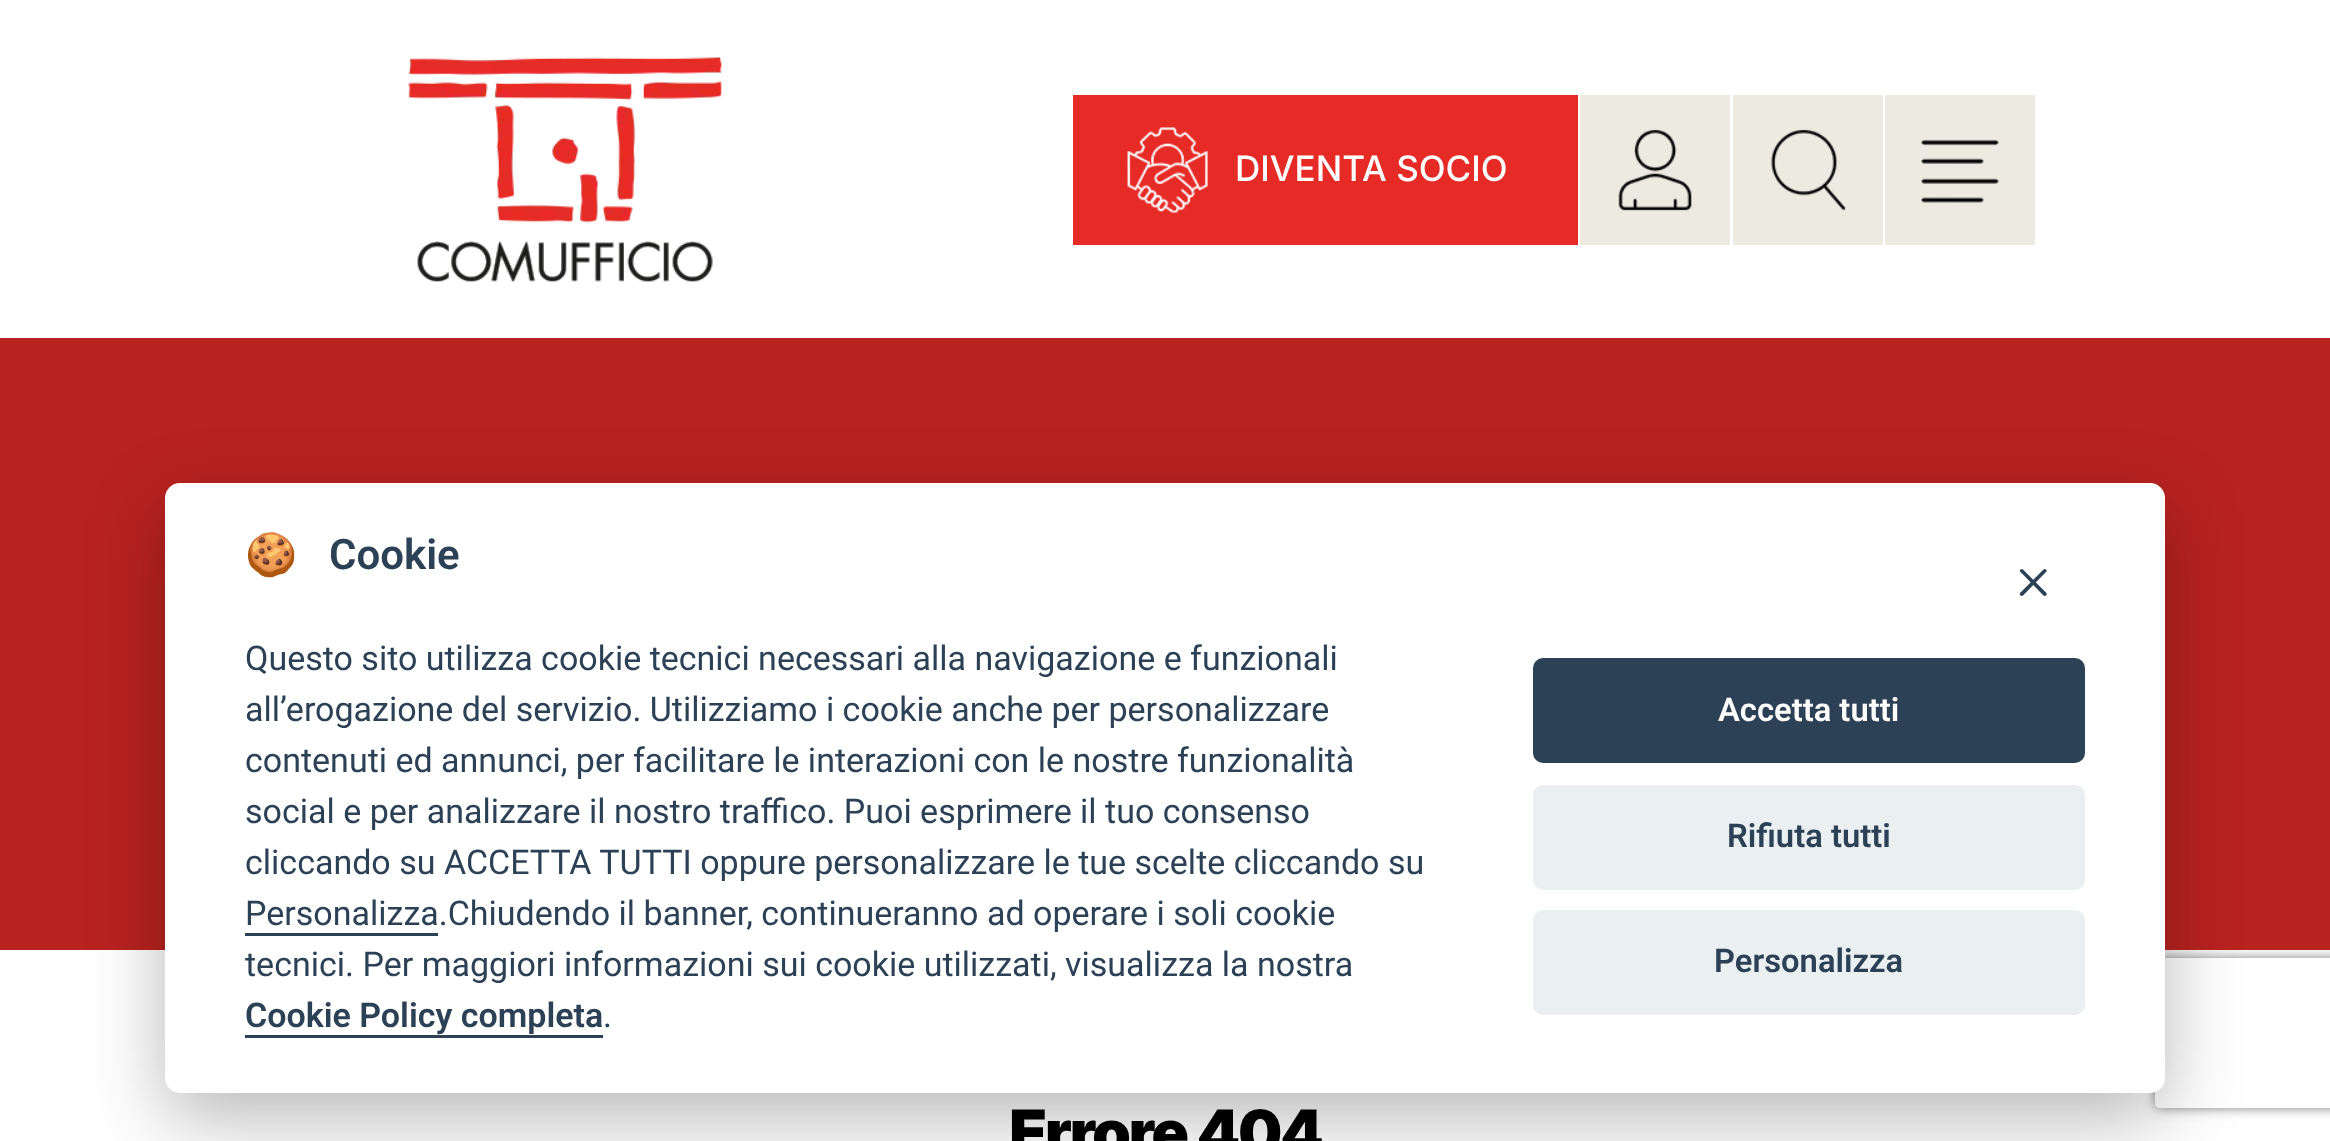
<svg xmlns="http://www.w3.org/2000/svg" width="2330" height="1141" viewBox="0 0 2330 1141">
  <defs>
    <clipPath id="clip1"><path d="M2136 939H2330V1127H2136ZM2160 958H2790C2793 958 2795 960 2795 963V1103C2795 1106 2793 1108 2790 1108H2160C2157 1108 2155 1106 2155 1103V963C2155 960 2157 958 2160 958Z" clip-rule="evenodd"/></clipPath>
    <filter id="blur1" x="-50%" y="-200%" width="200%" height="500%"><feGaussianBlur stdDeviation="6"/></filter>
    <filter id="blur2" x="-50%" y="-200%" width="200%" height="500%"><feGaussianBlur stdDeviation="37.5"/></filter>
  </defs>
  <rect width="100%" height="100%" fill="#ffffff"/>
  <image x="408" y="57" width="314" height="225" href="img1.png"/>
  <rect x="1073" y="95" width="505" height="150" fill="#e62b27"/>
  <image x="1127" y="127" width="81" height="86" href="img2.png"/>
  <text x="1235" y="181" font-family="Inter" font-size="35" font-weight="500" fill="#ffffff">DIVENTA SOCIO</text>
  <rect x="1580" y="95" width="150" height="150" fill="#edeae2"/>
  <image x="1618" y="129" width="74" height="82" href="img3.png"/>
  <rect x="1733" y="95" width="150" height="150" fill="#edeae2"/>
  <image x="1771" y="129" width="75" height="82" href="img4.png"/>
  <rect x="1885" y="95" width="150" height="150" fill="#edeae2"/>
  <image x="1921" y="139" width="78" height="64" href="img5.png"/>
  <g clip-path="url(#clip1)">
    <rect x="2155" y="958" width="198" height="150" rx="5" fill="#808080" filter="url(#blur1)"/>
  </g>
  <rect x="0" y="338" width="2330" height="612" fill="#b8221f"/>
  <text x="1009" y="1155" font-family="Inter" font-size="62.5" font-weight="900" letter-spacing="-2.5" fill="#000000">Errore 404</text>
  <rect x="165" y="508" width="2000" height="610" rx="15" fill="#020203" fill-opacity="0.28" filter="url(#blur2)"/>
  <rect x="165" y="483" width="2000" height="610" rx="15" fill="#ffffff"/>
  <text x="245" y="569" font-family="Noto Color Emoji" font-size="42" font-weight="bold" fill="#2d4156">🍪</text>
  <text x="329" y="569" font-family="Roboto" font-size="42" font-weight="600" fill="#2d4156">Cookie</text>
  <path d="M2046 569.5C2047 570.5 2047 571.5 2046 572L2023 595.5C2022.5 596 2021 596 2020.5 595.5C2019.5 594.5 2019.5 593.5 2020.5 592.5L2043.5 569.5C2044.5 569 2045.5 569 2046 569.5Z" fill="#2d4156"/>
  <path d="M2020.5 569.5C2021 569 2022.5 569 2023 569.5L2046 592.5C2047 593.5 2047 594.5 2046 595.5C2045.5 596 2044.5 596 2043.5 595.5L2020.5 572C2019.5 571.5 2019.5 570.5 2020.5 569.5Z" fill="#2d4156"/>
  <text x="245" y="670" font-family="Roboto" font-size="34" fill="#2d4156">Questo sito utilizza cookie tecnici necessari alla navigazione e funzionali</text>
  <text x="245" y="721" font-family="Roboto" font-size="34" fill="#2d4156">all’erogazione del servizio. Utilizziamo i cookie anche per personalizzare</text>
  <text x="245" y="772" font-family="Roboto" font-size="34" fill="#2d4156">contenuti ed annunci, per facilitare le interazioni con le nostre funzionalità</text>
  <text x="245" y="823" font-family="Roboto" font-size="34" fill="#2d4156">social e per analizzare il nostro traffico. Puoi esprimere il tuo consenso</text>
  <text x="245" y="874" font-family="Roboto" font-size="34" fill="#2d4156">cliccando su ACCETTA TUTTI oppure personalizzare le tue scelte cliccando su</text>
  <text x="245" y="925" font-family="Roboto" font-size="34" fill="#2d4156">Personalizza.Chiudendo il banner, continueranno ad operare i soli cookie</text>
  <rect x="245" y="933" width="193" height="3" fill="#2d4156"/>
  <text x="245" y="976" font-family="Roboto" font-size="34" fill="#2d4156">tecnici. Per maggiori informazioni sui cookie utilizzati, visualizza la nostra</text>
  <text x="245" y="1027" font-family="Roboto" font-size="34" font-weight="600" fill="#2d4156">Cookie Policy completa</text>
  <rect x="245" y="1035" width="358" height="3" fill="#2d4156"/>
  <text x="603" y="1027" font-family="Roboto" font-size="34" fill="#2d4156">.</text>
  <rect x="1533" y="658" width="552" height="105" rx="10" fill="#2d4156"/>
  <text x="1718" y="721" font-family="Roboto" font-size="32.75" font-weight="600" fill="#ffffff">Accetta tutti</text>
  <rect x="1533" y="785" width="552" height="105" rx="10" fill="#eaeff2"/>
  <text x="1727" y="847" font-family="Roboto" font-size="32.75" font-weight="600" fill="#2d4156">Rifiuta tutti</text>
  <rect x="1533" y="910" width="552" height="105" rx="10" fill="#eaeff2"/>
  <text x="1714" y="972" font-family="Roboto" font-size="32.75" font-weight="600" fill="#2d4156">Personalizza</text>
</svg>
